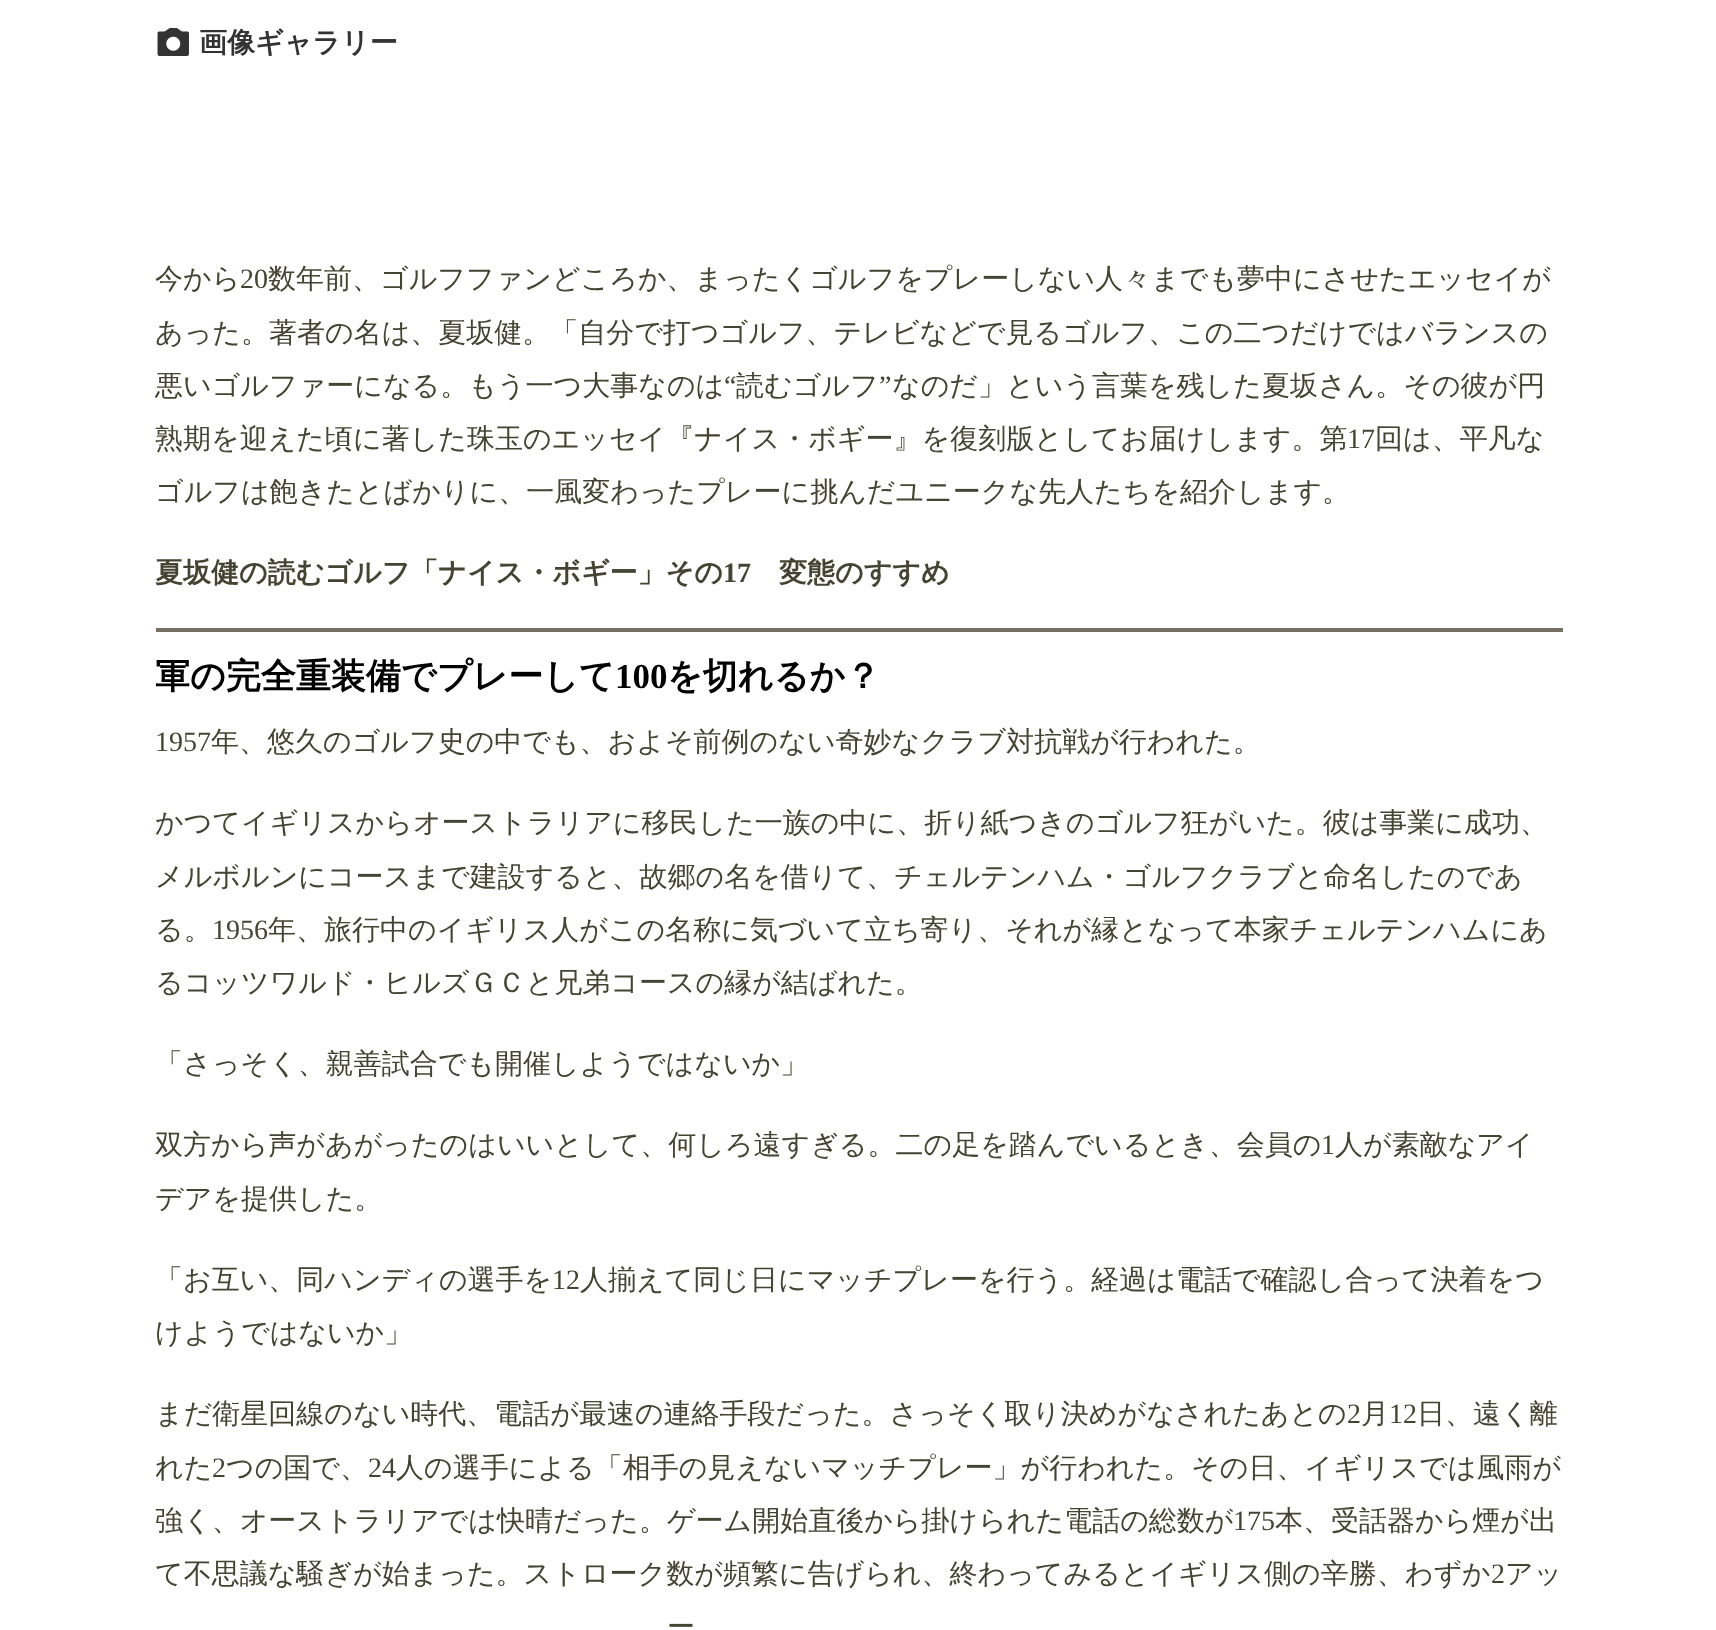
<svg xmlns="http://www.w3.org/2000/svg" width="1716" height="1630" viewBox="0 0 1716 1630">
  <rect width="100%" height="100%" fill="#ffffff"/>
  <image x="157" y="28" width="32" height="28" href="img1.png"/>
  <text x="199" y="52" font-family="WenQuanYi Zen Hei" font-size="28" font-weight="bold" fill="#333333">画像ギャラリー</text>
  <text x="155" y="288" font-family="WenQuanYi Zen Hei" font-size="28" font-weight="500" fill="#444433">今から</text>
  <text x="240" y="288" font-family="Liberation Serif" font-size="28" fill="#444433">20</text>
  <text x="268" y="288" font-family="WenQuanYi Zen Hei" font-size="28" font-weight="500" fill="#444433">数年前、ゴルフファンどころか、まったくゴルフをプレーしない人々までも夢中にさせたエッセイが</text>
  <text x="155" y="342" font-family="WenQuanYi Zen Hei" font-size="28" font-weight="500" fill="#444433">あった。著者の名は、夏坂健。「自分で打つゴルフ、テレビなどで見るゴルフ、この二つだけではバランスの</text>
  <text x="155" y="395" font-family="WenQuanYi Zen Hei" font-size="28" font-weight="500" fill="#444433">悪いゴルファーになる。もう一つ大事なのは</text>
  <text x="724" y="395" font-family="Liberation Serif" font-size="28" fill="#444433">“</text>
  <text x="736" y="395" font-family="WenQuanYi Zen Hei" font-size="28" font-weight="500" fill="#444433">読むゴルフ</text>
  <text x="879" y="395" font-family="Liberation Serif" font-size="28" fill="#444433">”</text>
  <text x="892" y="395" font-family="WenQuanYi Zen Hei" font-size="28" font-weight="500" fill="#444433">なのだ」という言葉を残した夏坂さん。その彼が円</text>
  <text x="155" y="448" font-family="WenQuanYi Zen Hei" font-size="28" font-weight="500" fill="#444433">熟期を迎えた頃に著した珠玉のエッセイ『ナイス・ボギー』を復刻版としてお届けします。第</text>
  <text x="1347" y="448" font-family="Liberation Serif" font-size="28" fill="#444433">17</text>
  <text x="1375" y="448" font-family="WenQuanYi Zen Hei" font-size="28" font-weight="500" fill="#444433">回は、平凡な</text>
  <text x="155" y="501" font-family="WenQuanYi Zen Hei" font-size="28" font-weight="500" fill="#444433">ゴルフは飽きたとばかりに、一風変わったプレーに挑んだユニークな先人たちを紹介します。</text>
  <text x="155" y="582" font-family="WenQuanYi Zen Hei" font-size="28" font-weight="bold" fill="#444433">夏坂健の読むゴルフ「ナイス・ボギー」その</text>
  <text x="723" y="582" font-family="Liberation Serif" font-size="28" font-weight="bold" fill="#444433">17</text>
  <text x="779" y="582" font-family="WenQuanYi Zen Hei" font-size="28" font-weight="bold" fill="#444433">変態のすすめ</text>
  <rect x="156" y="628" width="1407" height="4" fill="#776f63"/>
  <text x="155" y="688" font-family="WenQuanYi Zen Hei" font-size="35" font-weight="bold" fill="#000000">軍の完全重装備でプレーして</text>
  <text x="615" y="688" font-family="Liberation Serif" font-size="35" font-weight="bold" fill="#000000">100</text>
  <text x="667" y="688" font-family="WenQuanYi Zen Hei" font-size="35" font-weight="bold" fill="#000000">を切れるか？</text>
  <text x="155" y="751" font-family="Liberation Serif" font-size="28" fill="#444433">1957</text>
  <text x="211" y="751" font-family="WenQuanYi Zen Hei" font-size="28" font-weight="500" fill="#444433">年、悠久のゴルフ史の中でも、およそ前例のない奇妙なクラブ対抗戦が行われた。</text>
  <text x="155" y="832" font-family="WenQuanYi Zen Hei" font-size="28" font-weight="500" fill="#444433">かつてイギリスからオーストラリアに移民した一族の中に、折り紙つきのゴルフ狂がいた。彼は事業に成功、</text>
  <text x="155" y="886" font-family="WenQuanYi Zen Hei" font-size="28" font-weight="500" fill="#444433">メルボルンにコースまで建設すると、故郷の名を借りて、チェルテンハム・ゴルフクラブと命名したのであ</text>
  <text x="155" y="939" font-family="WenQuanYi Zen Hei" font-size="28" font-weight="500" fill="#444433">る。</text>
  <text x="212" y="939" font-family="Liberation Serif" font-size="28" fill="#444433">1956</text>
  <text x="268" y="939" font-family="WenQuanYi Zen Hei" font-size="28" font-weight="500" fill="#444433">年、旅行中のイギリス人がこの名称に気づいて立ち寄り、それが縁となって本家チェルテンハムにあ</text>
  <text x="155" y="992" font-family="WenQuanYi Zen Hei" font-size="28" font-weight="500" fill="#444433">るコッツワルド・ヒルズＧＣと兄弟コースの縁が結ばれた。</text>
  <text x="155" y="1073" font-family="WenQuanYi Zen Hei" font-size="28" font-weight="500" fill="#444433">「さっそく、親善試合でも開催しようではないか」</text>
  <text x="155" y="1154" font-family="WenQuanYi Zen Hei" font-size="28" font-weight="500" fill="#444433">双方から声があがったのはいいとして、何しろ遠すぎる。二の足を踏んでいるとき、会員の</text>
  <text x="1321" y="1154" font-family="Liberation Serif" font-size="28" fill="#444433">1</text>
  <text x="1335" y="1154" font-family="WenQuanYi Zen Hei" font-size="28" font-weight="500" fill="#444433">人が素敵なアイ</text>
  <text x="155" y="1208" font-family="WenQuanYi Zen Hei" font-size="28" font-weight="500" fill="#444433">デアを提供した。</text>
  <text x="155" y="1289" font-family="WenQuanYi Zen Hei" font-size="28" font-weight="500" fill="#444433">「お互い、同ハンディの選手を</text>
  <text x="552" y="1289" font-family="Liberation Serif" font-size="28" fill="#444433">12</text>
  <text x="580" y="1289" font-family="WenQuanYi Zen Hei" font-size="28" font-weight="500" fill="#444433">人揃えて同じ日にマッチプレーを行う。経過は電話で確認し合って決着をつ</text>
  <text x="155" y="1342" font-family="WenQuanYi Zen Hei" font-size="28" font-weight="500" fill="#444433">けようではないか」</text>
  <text x="155" y="1423" font-family="WenQuanYi Zen Hei" font-size="28" font-weight="500" fill="#444433">まだ衛星回線のない時代、電話が最速の連絡手段だった。さっそく取り決めがなされたあとの</text>
  <text x="1347" y="1423" font-family="Liberation Serif" font-size="28" fill="#444433">2</text>
  <text x="1361" y="1423" font-family="WenQuanYi Zen Hei" font-size="28" font-weight="500" fill="#444433">月</text>
  <text x="1389" y="1423" font-family="Liberation Serif" font-size="28" fill="#444433">12</text>
  <text x="1417" y="1423" font-family="WenQuanYi Zen Hei" font-size="28" font-weight="500" fill="#444433">日、遠く離</text>
  <text x="155" y="1477" font-family="WenQuanYi Zen Hei" font-size="28" font-weight="500" fill="#444433">れた</text>
  <text x="212" y="1477" font-family="Liberation Serif" font-size="28" fill="#444433">2</text>
  <text x="226" y="1477" font-family="WenQuanYi Zen Hei" font-size="28" font-weight="500" fill="#444433">つの国で、</text>
  <text x="368" y="1477" font-family="Liberation Serif" font-size="28" fill="#444433">24</text>
  <text x="396" y="1477" font-family="WenQuanYi Zen Hei" font-size="28" font-weight="500" fill="#444433">人の選手による「相手の見えないマッチプレー」が行われた。その日、イギリスでは風雨が</text>
  <text x="155" y="1530" font-family="WenQuanYi Zen Hei" font-size="28" font-weight="500" fill="#444433">強く、オーストラリアでは快晴だった。ゲーム開始直後から掛けられた電話の総数が</text>
  <text x="1233" y="1530" font-family="Liberation Serif" font-size="28" fill="#444433">175</text>
  <text x="1275" y="1530" font-family="WenQuanYi Zen Hei" font-size="28" font-weight="500" fill="#444433">本、受話器から煙が出</text>
  <text x="155" y="1583" font-family="WenQuanYi Zen Hei" font-size="28" font-weight="500" fill="#444433">て不思議な騒ぎが始まった。ストローク数が頻繁に告げられ、終わってみるとイギリス側の辛勝、わずか</text>
  <text x="1491" y="1583" font-family="Liberation Serif" font-size="28" fill="#444433">2</text>
  <text x="1505" y="1583" font-family="WenQuanYi Zen Hei" font-size="28" font-weight="500" fill="#444433">アッ</text>
  <text x="667" y="1636" font-family="WenQuanYi Zen Hei" font-size="28" font-weight="500" fill="#444433">ー</text>
</svg>
